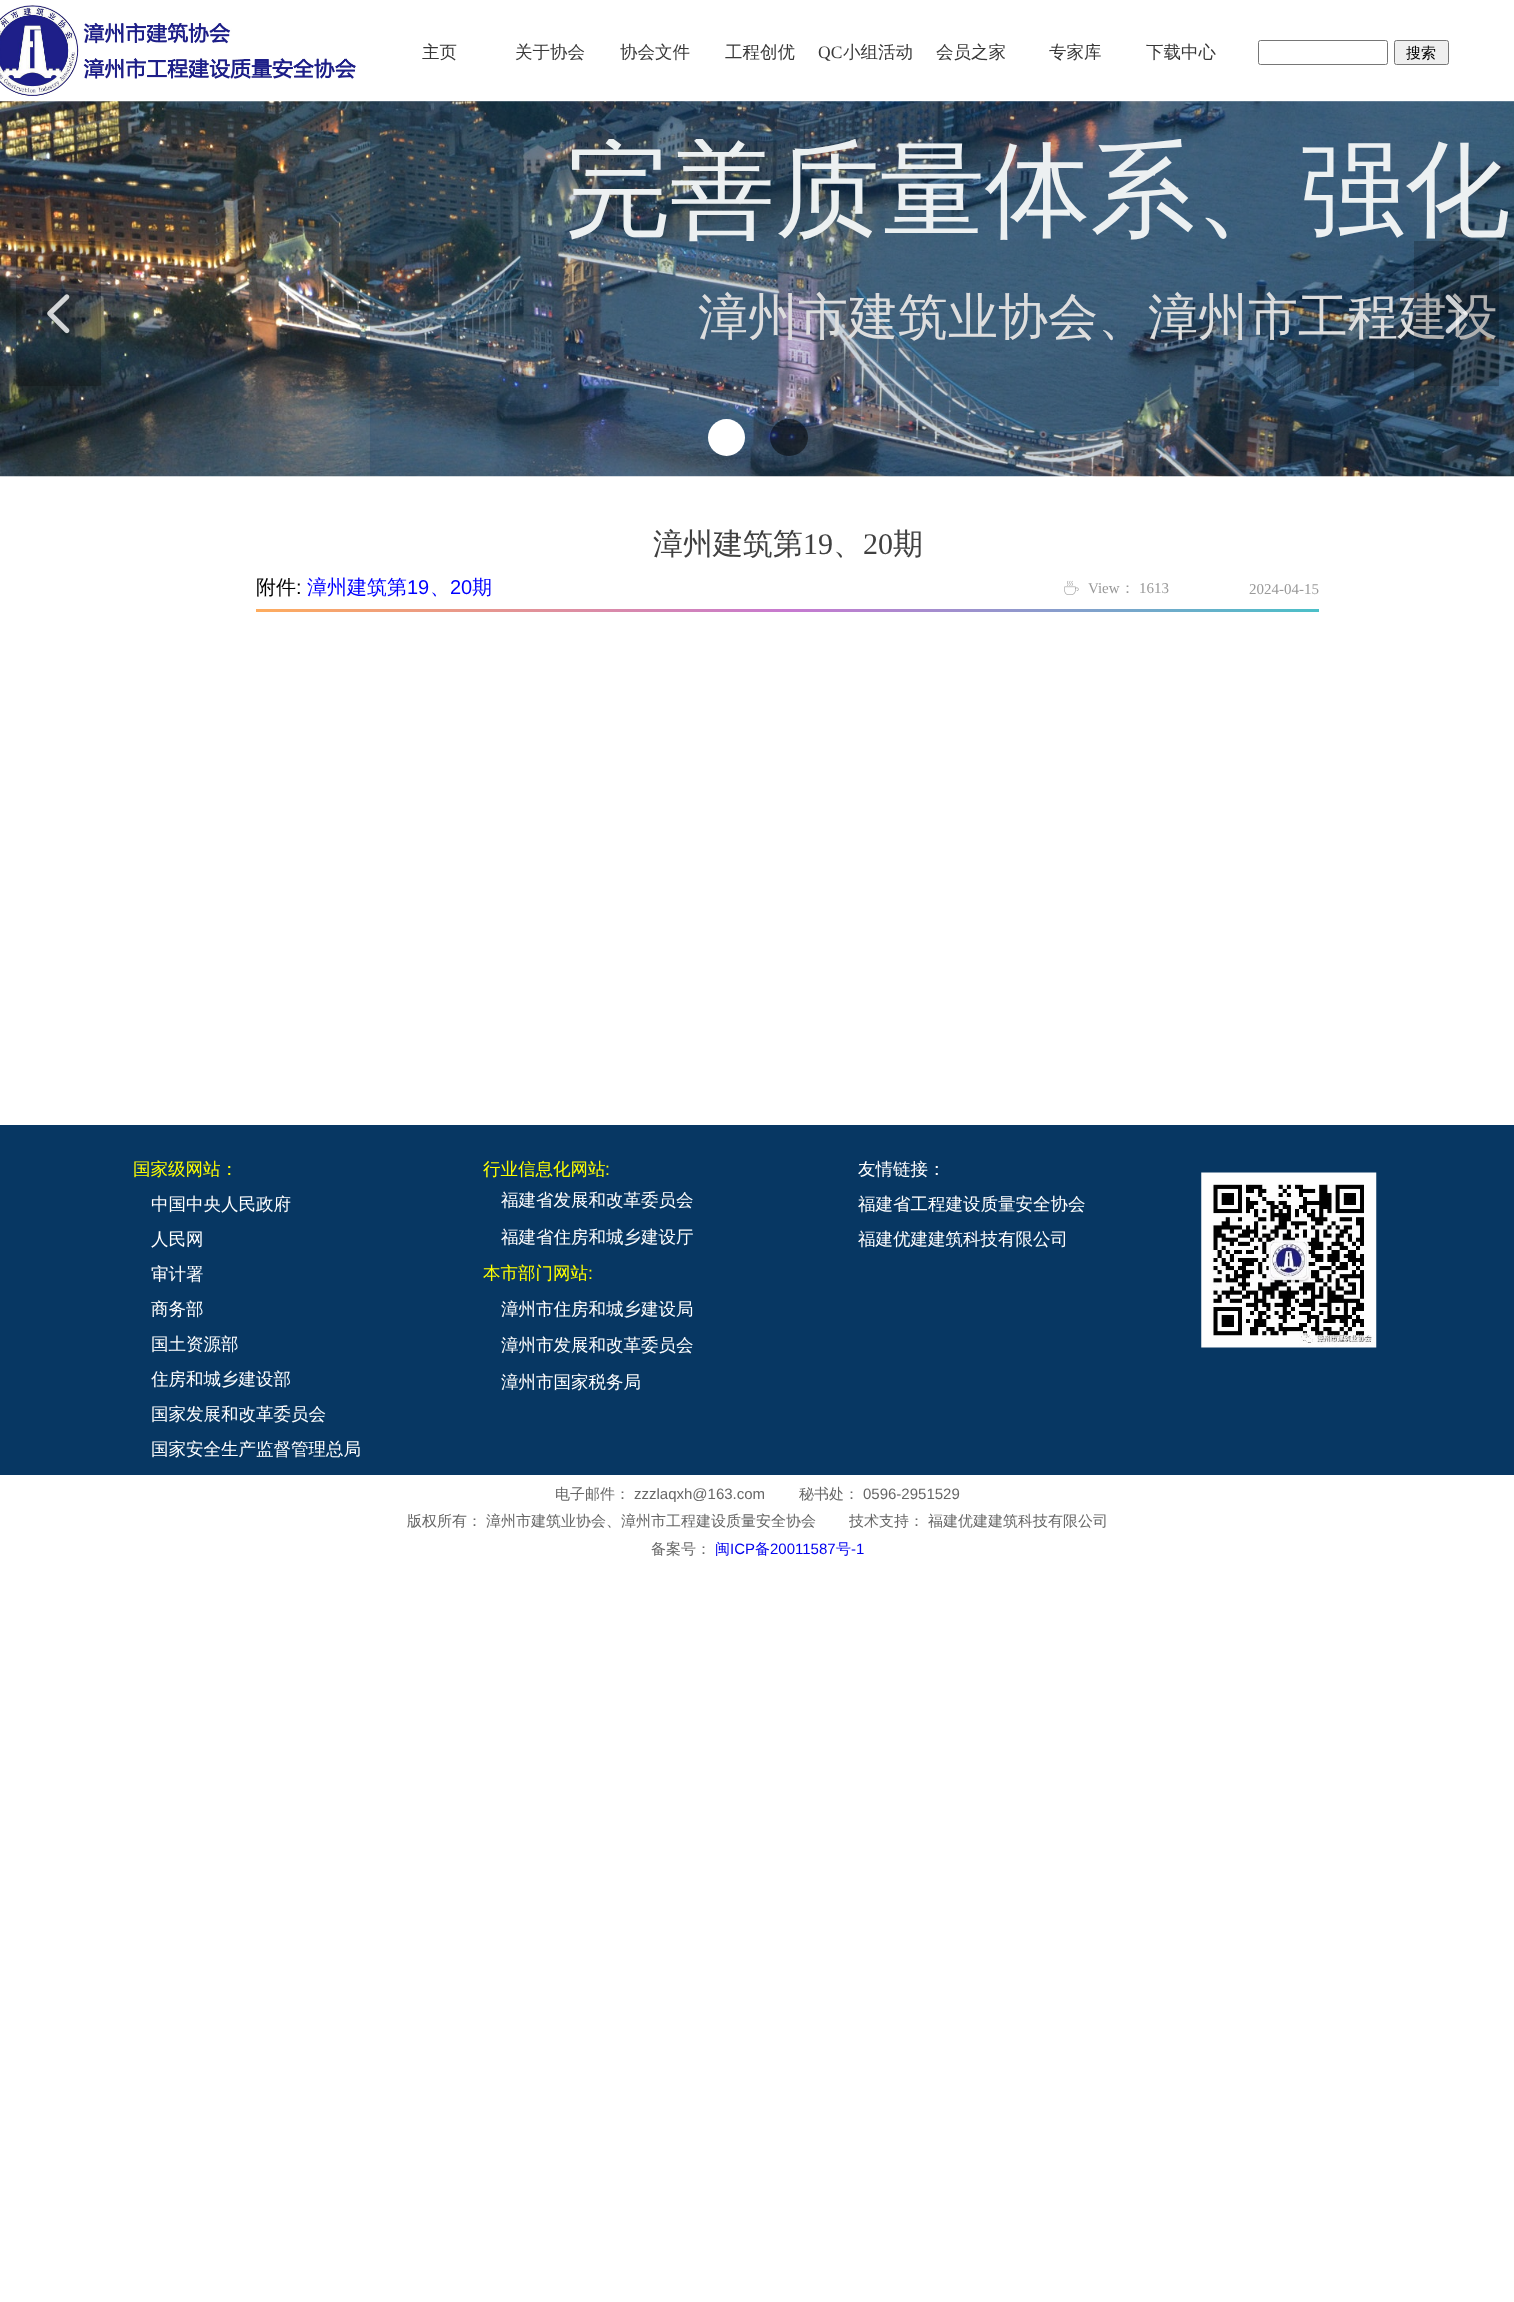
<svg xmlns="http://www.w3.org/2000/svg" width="1514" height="2302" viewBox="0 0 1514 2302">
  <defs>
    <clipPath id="clip1"><rect x="458" y="139" width="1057" height="337"/></clipPath>
    <linearGradient id="g1" gradientUnits="userSpaceOnUse" x1="521" y1="876" x2="1054" y2="344"><stop offset="0" stop-color="#feac5e"/><stop offset="0.5" stop-color="#c779d0"/><stop offset="1" stop-color="#4bc0c8"/></linearGradient>
  </defs>
  <rect width="100%" height="100%" fill="#ffffff"/>
  <image x="0" y="5" width="356" height="91" href="img1.png"/>
  <text x="422" y="58" font-family="WenQuanYi Zen Hei" font-size="17.5" font-weight="500" fill="#383838">主页</text>
  <text x="515" y="58" font-family="WenQuanYi Zen Hei" font-size="17.5" font-weight="500" fill="#383838">关于协会</text>
  <text x="620" y="58" font-family="WenQuanYi Zen Hei" font-size="17.5" font-weight="500" fill="#383838">协会文件</text>
  <text x="725" y="58" font-family="WenQuanYi Zen Hei" font-size="17.5" font-weight="500" fill="#383838">工程创优</text>
  <text x="818" y="58" font-family="Liberation Serif" font-size="17.5" fill="#383838">QC</text>
  <text x="843" y="58" font-family="WenQuanYi Zen Hei" font-size="17.5" font-weight="500" fill="#383838">小组活动</text>
  <text x="936" y="58" font-family="WenQuanYi Zen Hei" font-size="17.5" font-weight="500" fill="#383838">会员之家</text>
  <text x="1049" y="58" font-family="WenQuanYi Zen Hei" font-size="17.5" font-weight="500" fill="#383838">专家库</text>
  <text x="1146" y="58" font-family="WenQuanYi Zen Hei" font-size="17.5" font-weight="500" fill="#383838">下载中心</text>
  <rect x="1258.5" y="40.5" width="129" height="24" rx="2" fill="none" stroke="#767676"/>
  <rect x="1394.5" y="40.5" width="54" height="24" rx="2" fill="#efefef" stroke="#767676"/>
  <text x="1406" y="58" font-family="WenQuanYi Zen Hei" font-size="15" font-weight="500" fill="#000000">搜索</text>
  <image x="0" y="101" width="1514" height="376" href="img3.png"/>
  <rect x="16" y="241" width="85" height="145" fill="#000000" fill-opacity="0.2"/>
  <image x="47" y="294" width="23" height="40" href="img2.png"/>
  <rect x="370" y="101" width="1144" height="375" fill="#073763" fill-opacity="0.22"/>
  <g clip-path="url(#clip1)">
    <text x="565" y="226" font-family="WenQuanYi Zen Hei" font-size="105" font-weight="500" fill="#ecf0f1">完善质量体系、强化</text>
  </g>
  <text x="698" y="334" font-family="WenQuanYi Zen Hei" font-size="50" font-weight="500" fill="#dddddd">漳州市建筑业协会、漳州市工程建设</text>
  <rect x="1414" y="241" width="85" height="145" fill="#000000" fill-opacity="0.2"/>
  <image x="1445" y="294" width="23" height="40" href="img4.png"/>
  <circle cx="726.5" cy="437.5" r="18.5" fill="#ffffff"/>
  <rect x="770" y="419" width="38" height="37" rx="18.5" fill="#000000" fill-opacity="0.5"/>
  <text x="653" y="554" font-family="WenQuanYi Zen Hei" font-size="30" font-weight="500" fill="#404040">漳州建筑第</text>
  <text x="803" y="554" font-family="Liberation Serif" font-size="30" fill="#404040">19</text>
  <text x="833" y="554" font-family="WenQuanYi Zen Hei" font-size="30" font-weight="500" fill="#404040">、</text>
  <text x="863" y="554" font-family="Liberation Serif" font-size="30" fill="#404040">20</text>
  <text x="893" y="554" font-family="WenQuanYi Zen Hei" font-size="30" font-weight="500" fill="#404040">期</text>
  <text x="256" y="594" font-family="WenQuanYi Zen Hei" font-size="20" font-weight="500" fill="#000000">附件</text>
  <text x="296" y="594" font-family="Liberation Sans" font-size="20" fill="#000000">:</text>
  <text x="307" y="594" font-family="WenQuanYi Zen Hei" font-size="20" font-weight="500" fill="#0000ff">漳州建筑第</text>
  <text x="407" y="594" font-family="Liberation Sans" font-size="20" fill="#0000ff">19</text>
  <text x="450" y="594" font-family="Liberation Sans" font-size="20" fill="#0000ff">20</text>
  <text x="472" y="594" font-family="WenQuanYi Zen Hei" font-size="20" font-weight="500" fill="#0000ff">期</text>
  <text x="430" y="594" font-family="WenQuanYi Zen Hei" font-size="20" font-weight="500" fill="#0000ff">、</text>
  <image x="1064" y="580" width="15" height="15" href="img5.png"/>
  <text x="1088" y="593" font-family="Liberation Serif" font-size="15" fill="#999999">View</text>
  <text x="1120" y="593" font-family="WenQuanYi Zen Hei" font-size="15" font-weight="500" fill="#999999">：</text>
  <text x="1139" y="593" font-family="Liberation Serif" font-size="15" fill="#999999">1613</text>
  <text x="1249" y="594" font-family="Liberation Serif" font-size="15" fill="#999999">2024-04-15</text>
  <rect x="256" y="609" width="1063" height="3" fill="url(#g1)"/>
  <rect x="0" y="1125" width="1514" height="350" fill="#073763"/>
  <text x="133" y="1175" font-family="WenQuanYi Zen Hei" font-size="17.5" font-weight="500" fill="#ffff00">国家级网站：</text>
  <text x="151" y="1210" font-family="WenQuanYi Zen Hei" font-size="17.5" font-weight="500" fill="#ffffff">中国中央人民政府</text>
  <text x="151" y="1245" font-family="WenQuanYi Zen Hei" font-size="17.5" font-weight="500" fill="#ffffff">人民网</text>
  <text x="151" y="1280" font-family="WenQuanYi Zen Hei" font-size="17.5" font-weight="500" fill="#ffffff">审计署</text>
  <text x="151" y="1315" font-family="WenQuanYi Zen Hei" font-size="17.5" font-weight="500" fill="#ffffff">商务部</text>
  <text x="151" y="1350" font-family="WenQuanYi Zen Hei" font-size="17.5" font-weight="500" fill="#ffffff">国土资源部</text>
  <text x="151" y="1385" font-family="WenQuanYi Zen Hei" font-size="17.5" font-weight="500" fill="#ffffff">住房和城乡建设部</text>
  <text x="151" y="1420" font-family="WenQuanYi Zen Hei" font-size="17.5" font-weight="500" fill="#ffffff">国家发展和改革委员会</text>
  <text x="151" y="1455" font-family="WenQuanYi Zen Hei" font-size="17.5" font-weight="500" fill="#ffffff">国家安全生产监督管理总局</text>
  <text x="483" y="1175" font-family="WenQuanYi Zen Hei" font-size="17.5" font-weight="500" fill="#ffff00">行业信息化网站</text>
  <text x="605" y="1175" font-family="Liberation Sans" font-size="17.5" fill="#ffff00">:</text>
  <text x="501" y="1206" font-family="WenQuanYi Zen Hei" font-size="17.5" font-weight="500" fill="#ffffff">福建省发展和改革委员会</text>
  <text x="501" y="1243" font-family="WenQuanYi Zen Hei" font-size="17.5" font-weight="500" fill="#ffffff">福建省住房和城乡建设厅</text>
  <text x="483" y="1279" font-family="WenQuanYi Zen Hei" font-size="17.5" font-weight="500" fill="#ffff00">本市部门网站</text>
  <text x="588" y="1279" font-family="Liberation Sans" font-size="17.5" fill="#ffff00">:</text>
  <text x="501" y="1315" font-family="WenQuanYi Zen Hei" font-size="17.5" font-weight="500" fill="#ffffff">漳州市住房和城乡建设局</text>
  <text x="501" y="1351" font-family="WenQuanYi Zen Hei" font-size="17.5" font-weight="500" fill="#ffffff">漳州市发展和改革委员会</text>
  <text x="501" y="1388" font-family="WenQuanYi Zen Hei" font-size="17.5" font-weight="500" fill="#ffffff">漳州市国家税务局</text>
  <text x="858" y="1175" font-family="WenQuanYi Zen Hei" font-size="17.5" font-weight="500" fill="#ffffff">友情链接：</text>
  <text x="858" y="1210" font-family="WenQuanYi Zen Hei" font-size="17.5" font-weight="500" fill="#ffffff">福建省工程建设质量安全协会</text>
  <text x="858" y="1245" font-family="WenQuanYi Zen Hei" font-size="17.5" font-weight="500" fill="#ffffff">福建优建建筑科技有限公司</text>
  <image x="1201" y="1172" width="176" height="176" href="img6.png"/>
  <text x="555" y="1499" font-family="WenQuanYi Zen Hei" font-size="15" font-weight="500" fill="#666666">电子邮件：</text>
  <text x="634" y="1499" font-family="Liberation Sans" font-size="15" fill="#666666">zzzlaqxh@163.com</text>
  <text x="799" y="1499" font-family="WenQuanYi Zen Hei" font-size="15" font-weight="500" fill="#666666">秘书处：</text>
  <text x="863" y="1499" font-family="Liberation Sans" font-size="15" fill="#666666">0596-2951529</text>
  <text x="407" y="1526" font-family="WenQuanYi Zen Hei" font-size="15" font-weight="500" fill="#666666">版权所有：</text>
  <text x="486" y="1526" font-family="WenQuanYi Zen Hei" font-size="15" font-weight="500" fill="#666666">漳州市建筑业协会、漳州市工程建设质量安全协会</text>
  <text x="849" y="1526" font-family="WenQuanYi Zen Hei" font-size="15" font-weight="500" fill="#666666">技术支持：</text>
  <text x="928" y="1526" font-family="WenQuanYi Zen Hei" font-size="15" font-weight="500" fill="#666666">福建优建建筑科技有限公司</text>
  <text x="651" y="1554" font-family="WenQuanYi Zen Hei" font-size="15" font-weight="500" fill="#666666">备案号：</text>
  <text x="715" y="1554" font-family="WenQuanYi Zen Hei" font-size="15" font-weight="500" fill="#0000ee">闽</text>
  <text x="730" y="1554" font-family="Liberation Sans" font-size="15" fill="#0000ee">ICP</text>
  <text x="755" y="1554" font-family="WenQuanYi Zen Hei" font-size="15" font-weight="500" fill="#0000ee">备</text>
  <text x="770" y="1554" font-family="Liberation Sans" font-size="15" fill="#0000ee">20011587</text>
  <text x="836" y="1554" font-family="WenQuanYi Zen Hei" font-size="15" font-weight="500" fill="#0000ee">号</text>
  <text x="851" y="1554" font-family="Liberation Sans" font-size="15" fill="#0000ee">-1</text>
</svg>
